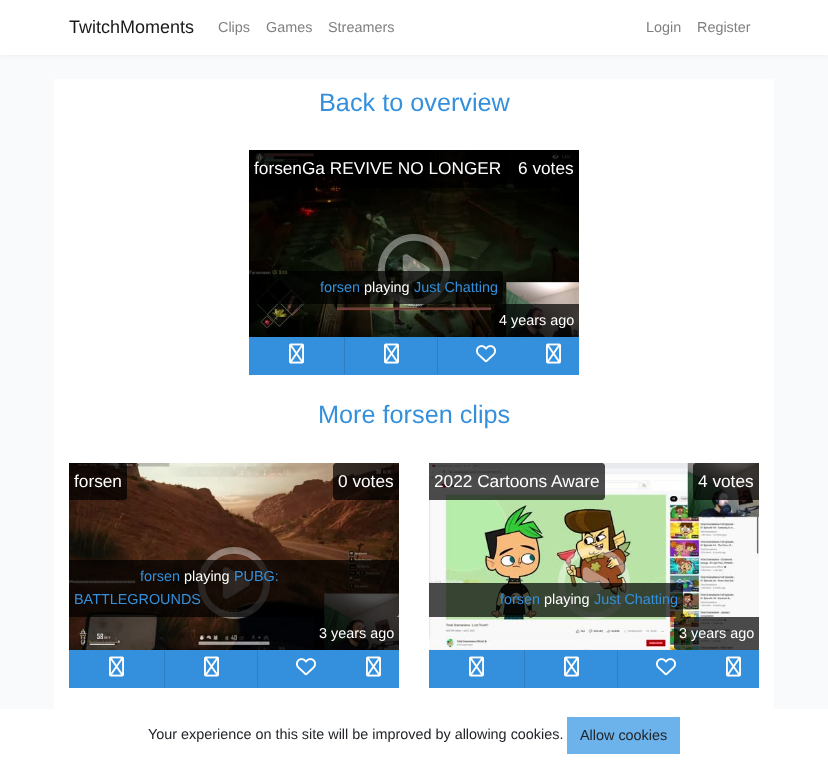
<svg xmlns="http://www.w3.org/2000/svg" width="828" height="762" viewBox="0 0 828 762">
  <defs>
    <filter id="blur1" x="-50%" y="-200%" width="200%" height="500%"><feGaussianBlur stdDeviation="2"/></filter>
  </defs>
  <rect width="100%" height="100%" fill="#f8fafc"/>
  <rect x="0" y="2" width="828" height="55" fill="#000000" fill-opacity="0.04" filter="url(#blur1)"/>
  <rect x="0" y="0" width="828" height="55" fill="#ffffff"/>
  <text x="69" y="33" font-family="Liberation Sans" font-size="18" fill="#1a1a1a">TwitchMoments</text>
  <text x="218" y="32" font-family="Liberation Sans" font-size="14.4" fill="#808080">Clips</text>
  <text x="266" y="32" font-family="Liberation Sans" font-size="14.4" fill="#808080">Games</text>
  <text x="328" y="32" font-family="Liberation Sans" font-size="14.4" fill="#808080">Streamers</text>
  <text x="646" y="32" font-family="Liberation Sans" font-size="14.4" fill="#808080">Login</text>
  <text x="697" y="32" font-family="Liberation Sans" font-size="14.4" fill="#808080">Register</text>
  <rect x="54" y="79" width="720" height="630" fill="#ffffff"/>
  <text x="319" y="111" font-family="Liberation Sans" font-size="25.25" fill="#3490dc">Back to overview</text>
  <image x="249" y="150" width="330" height="187" href="img1.png"/>
  <path d="M249 150H504C505.5 150 507 151.5 507 153V185C507 186.5 505.5 188 504 188H249Z" fill="#000000" fill-opacity="0.7"/>
  <text x="254" y="174" font-family="Liberation Sans" font-size="17.25" fill="#ffffff">forsenGa REVIVE NO LONGER</text>
  <path d="M516 150H579V188H516C514.5 188 513 186.5 513 185V153C513 151.5 514.5 150 516 150Z" fill="#000000" fill-opacity="0.7"/>
  <text x="518" y="174" font-family="Liberation Sans" font-size="17.25" fill="#ffffff">6 votes</text>
  <image x="378" y="234" width="72" height="72" href="img2.png"/>
  <path d="M249 271H500C501.5 271 503 272.5 503 274V301C503 302.5 501.5 304 500 304H249Z" fill="#000000" fill-opacity="0.7"/>
  <text x="320" y="292" font-family="Liberation Sans" font-size="14.4" fill="#3490dc">forsen</text>
  <text x="364" y="292" font-family="Liberation Sans" font-size="14.4" fill="#ffffff">playing</text>
  <text x="414" y="292" font-family="Liberation Sans" font-size="14.4" fill="#3490dc">Just Chatting</text>
  <path d="M497 304H579V337H497C495.5 337 494 335.5 494 334V307C494 305.5 495.5 304 497 304Z" fill="#000000" fill-opacity="0.7"/>
  <text x="499" y="325" font-family="Liberation Sans" font-size="14.4" fill="#ffffff">4 years ago</text>
  <rect x="249" y="337" width="330" height="38" fill="#3490dc"/>
  <image x="289" y="343" width="15" height="21" href="img3.png"/>
  <path d="M438 337V375L437 374V338Z" fill="#2e7ec1"/>
  <path d="M438 375H344L345 374H437Z" fill="#3490dc"/>
  <path d="M344 375V337L345 338V374Z" fill="#2e7ec1"/>
  <image x="384" y="343" width="15" height="21" href="img3.png"/>
  <image x="476" y="345" width="20" height="18" href="img4.png"/>
  <image x="546" y="343" width="15" height="21" href="img3.png"/>
  <text x="318" y="423" font-family="Liberation Sans" font-size="25.25" fill="#3490dc">More forsen clips</text>
  <image x="69" y="463" width="330" height="187" href="img5.png"/>
  <path d="M69 463H124C125.5 463 127 464.5 127 466V497C127 498.5 125.5 500 124 500H69Z" fill="#000000" fill-opacity="0.7"/>
  <text x="74" y="487" font-family="Liberation Sans" font-size="17.25" fill="#ffffff">forsen</text>
  <path d="M336 463H399V500H336C334.5 500 333 498.5 333 497V466C333 464.5 334.5 463 336 463Z" fill="#000000" fill-opacity="0.7"/>
  <text x="338" y="487" font-family="Liberation Sans" font-size="17.25" fill="#ffffff">0 votes</text>
  <image x="198" y="547" width="72" height="72" href="img6.png"/>
  <path d="M69 560H396C397.5 560 399 561.5 399 563V614C399 615.5 397.5 617 396 617H69Z" fill="#000000" fill-opacity="0.7"/>
  <text x="140" y="581" font-family="Liberation Sans" font-size="14.4" fill="#3490dc">forsen</text>
  <text x="184" y="581" font-family="Liberation Sans" font-size="14.4" fill="#ffffff">playing</text>
  <text x="234" y="581" font-family="Liberation Sans" font-size="14.4" fill="#3490dc">PUBG:</text>
  <text x="74" y="604" font-family="Liberation Sans" font-size="14.4" fill="#3490dc">BATTLEGROUNDS</text>
  <path d="M317 617H399V650H317C315.5 650 314 648.5 314 647V620C314 618.5 315.5 617 317 617Z" fill="#000000" fill-opacity="0.7"/>
  <text x="319" y="638" font-family="Liberation Sans" font-size="14.4" fill="#ffffff">3 years ago</text>
  <rect x="69" y="650" width="330" height="38" fill="#3490dc"/>
  <image x="109" y="656" width="15" height="21" href="img3.png"/>
  <path d="M258 650V688L257 687V651Z" fill="#2e7ec1"/>
  <path d="M258 688H164L165 687H257Z" fill="#3490dc"/>
  <path d="M164 688V650L165 651V687Z" fill="#2e7ec1"/>
  <image x="204" y="656" width="15" height="21" href="img3.png"/>
  <image x="296" y="658" width="20" height="18" href="img4.png"/>
  <image x="366" y="656" width="15" height="21" href="img3.png"/>
  <image x="429" y="463" width="330" height="187" href="img7.png"/>
  <path d="M429 463H602C603.5 463 605 464.5 605 466V497C605 498.5 603.5 500 602 500H429Z" fill="#000000" fill-opacity="0.7"/>
  <text x="434" y="487" font-family="Liberation Sans" font-size="17.25" fill="#ffffff">2022 Cartoons Aware</text>
  <path d="M696 463H759V500H696C694.5 500 693 498.5 693 497V466C693 464.5 694.5 463 696 463Z" fill="#000000" fill-opacity="0.7"/>
  <text x="698" y="487" font-family="Liberation Sans" font-size="17.25" fill="#ffffff">4 votes</text>
  <image x="558" y="547" width="72" height="72" href="img8.png"/>
  <path d="M429 583H680C681.5 583 683 584.5 683 586V614C683 615.5 681.5 617 680 617H429Z" fill="#000000" fill-opacity="0.7"/>
  <text x="500" y="604" font-family="Liberation Sans" font-size="14.4" fill="#3490dc">forsen</text>
  <text x="544" y="604" font-family="Liberation Sans" font-size="14.4" fill="#ffffff">playing</text>
  <text x="594" y="604" font-family="Liberation Sans" font-size="14.4" fill="#3490dc">Just Chatting</text>
  <path d="M677 617H759V650H677C675.5 650 674 648.5 674 647V620C674 618.5 675.5 617 677 617Z" fill="#000000" fill-opacity="0.7"/>
  <text x="679" y="638" font-family="Liberation Sans" font-size="14.4" fill="#ffffff">3 years ago</text>
  <rect x="429" y="650" width="330" height="38" fill="#3490dc"/>
  <image x="469" y="656" width="15" height="21" href="img3.png"/>
  <path d="M618 650V688L617 687V651Z" fill="#2e7ec1"/>
  <path d="M618 688H524L525 687H617Z" fill="#3490dc"/>
  <path d="M524 688V650L525 651V687Z" fill="#2e7ec1"/>
  <image x="564" y="656" width="15" height="21" href="img3.png"/>
  <image x="656" y="658" width="20" height="18" href="img4.png"/>
  <image x="726" y="656" width="15" height="21" href="img3.png"/>
  <rect x="0" y="709" width="828" height="53" fill="#ffffff"/>
  <text x="148" y="739" font-family="Liberation Sans" font-size="14.4" fill="#212529">Your experience on this site will be improved by allowing cookies.</text>
  <rect x="567" y="717" width="113" height="37" fill="#6cb2eb"/>
  <text x="580" y="740" font-family="Liberation Sans" font-size="14.4" fill="#212529">Allow cookies</text>
</svg>
